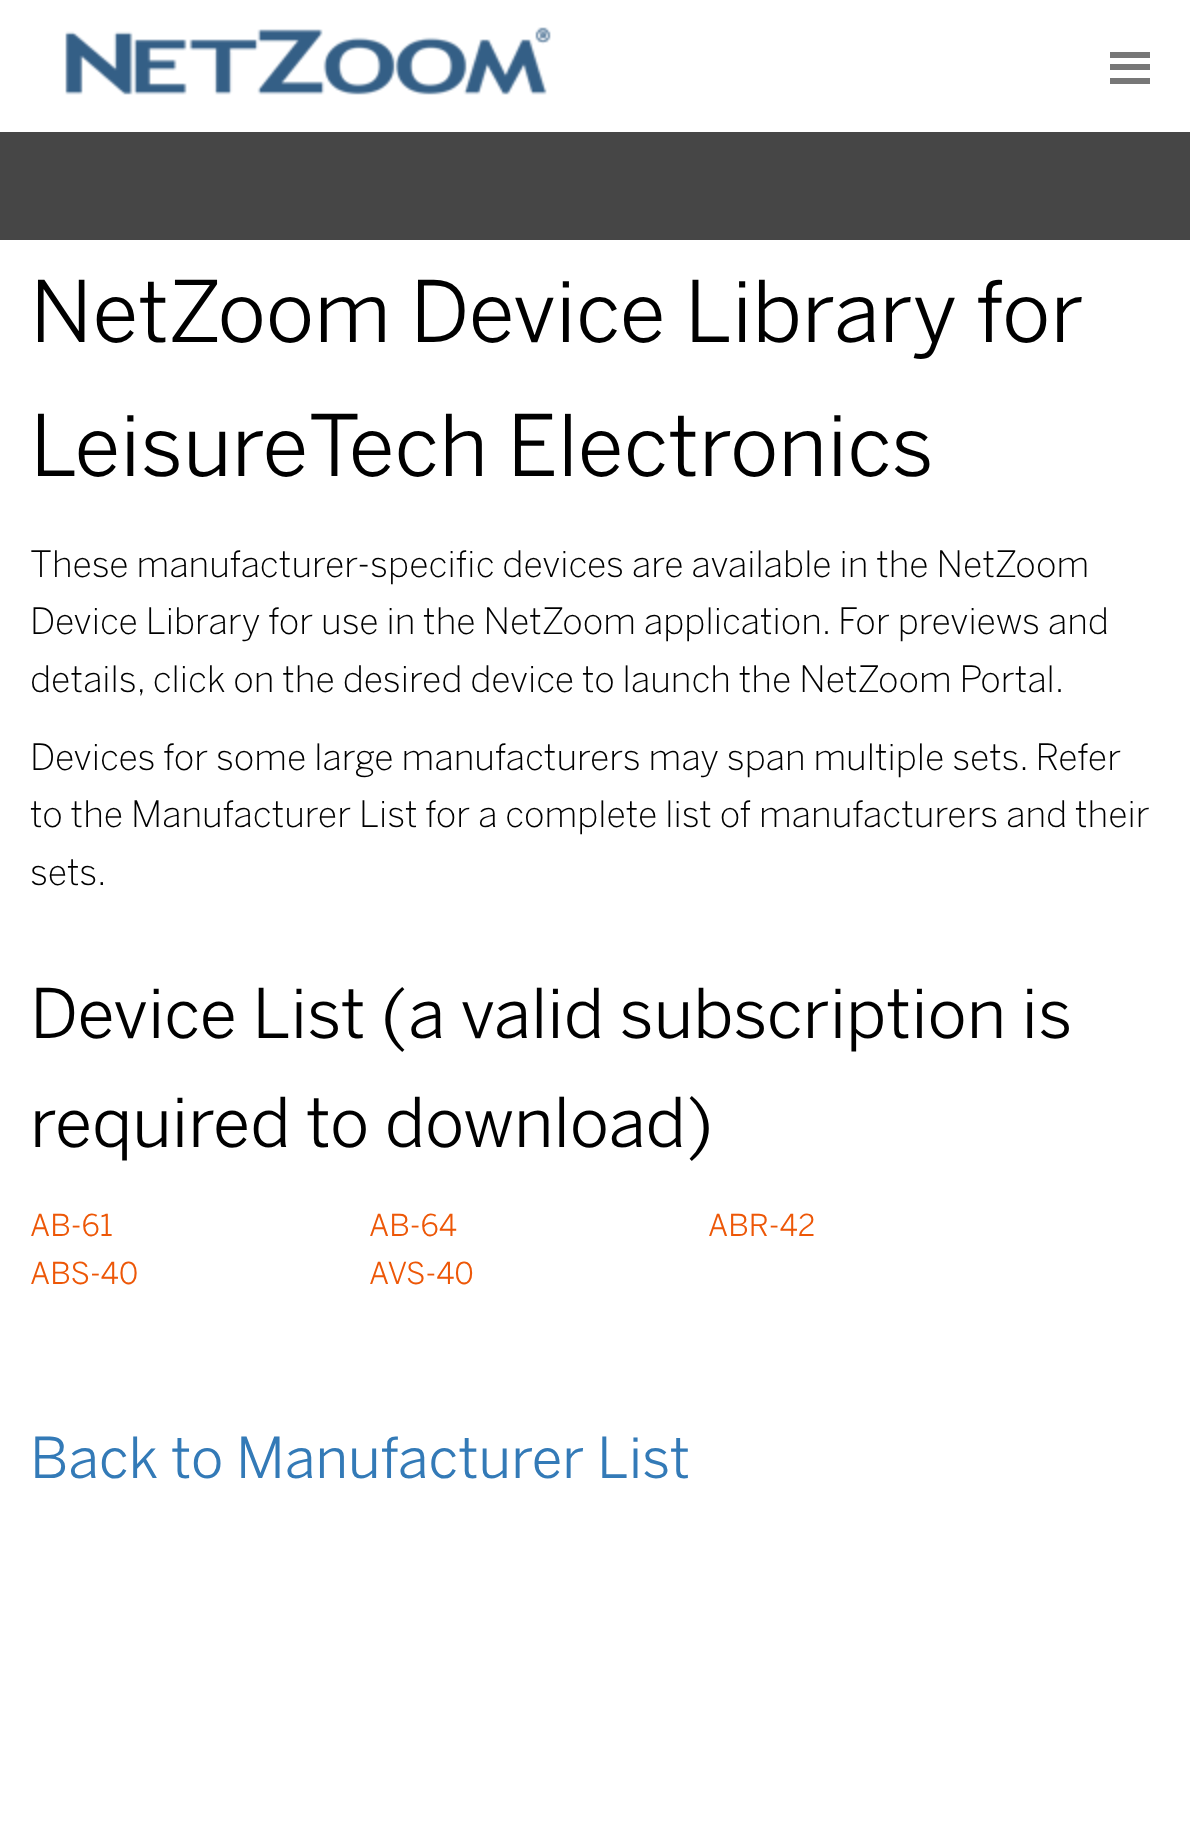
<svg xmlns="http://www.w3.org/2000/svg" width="1190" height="1846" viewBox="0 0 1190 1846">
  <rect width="100%" height="100%" fill="#ffffff"/>
  <image x="65" y="27" width="486" height="68" href="img1.png"/>
  <rect x="1110" y="52" width="40" height="6" fill="#777777"/>
  <rect x="1110" y="64" width="40" height="6" fill="#777777"/>
  <rect x="1110" y="78" width="40" height="6" fill="#777777"/>
  <rect x="0" y="132" width="1190" height="108" fill="#464646"/>
  <text x="30" y="342" font-family="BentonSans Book" font-size="84" fill="#000000">NetZoom Device Library for</text>
  <text x="30" y="476" font-family="BentonSans Book" font-size="84" fill="#000000">LeisureTech Electronics</text>
  <text x="30" y="577" font-family="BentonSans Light" font-size="36" font-weight="300" fill="#000000">These manufacturer-specific devices are available in the NetZoom</text>
  <text x="30" y="634" font-family="BentonSans Light" font-size="36" font-weight="300" fill="#000000">Device Library for use in the NetZoom application. For previews and</text>
  <text x="30" y="692" font-family="BentonSans Light" font-size="36" font-weight="300" fill="#000000">details, click on the desired device to launch the NetZoom Portal.</text>
  <text x="30" y="770" font-family="BentonSans Light" font-size="36" font-weight="300" fill="#000000">Devices for some large manufacturers may span multiple sets. Refer</text>
  <text x="30" y="827" font-family="BentonSans Light" font-size="36" font-weight="300" fill="#000000">to the Manufacturer List for a complete list of manufacturers and their</text>
  <text x="30" y="885" font-family="BentonSans Light" font-size="36" font-weight="300" fill="#000000">sets.</text>
  <text x="30" y="1038" font-family="BentonSans Book" font-size="68" fill="#000000">Device List (a valid subscription is</text>
  <text x="30" y="1147" font-family="BentonSans Book" font-size="68" fill="#000000">required to download)</text>
  <text x="30" y="1236" font-family="BentonSans Book" font-size="30" fill="#ed5707">AB-61</text>
  <text x="369" y="1236" font-family="BentonSans Book" font-size="30" fill="#ed5707">AB-64</text>
  <text x="708" y="1236" font-family="BentonSans Book" font-size="30" fill="#ed5707">ABR-42</text>
  <text x="30" y="1284" font-family="BentonSans Book" font-size="30" fill="#ed5707">ABS-40</text>
  <text x="369" y="1284" font-family="BentonSans Book" font-size="30" fill="#ed5707">AVS-40</text>
  <text x="30" y="1478" font-family="BentonSans Book" font-size="56" fill="#337ab7">Back to Manufacturer List</text>
</svg>
